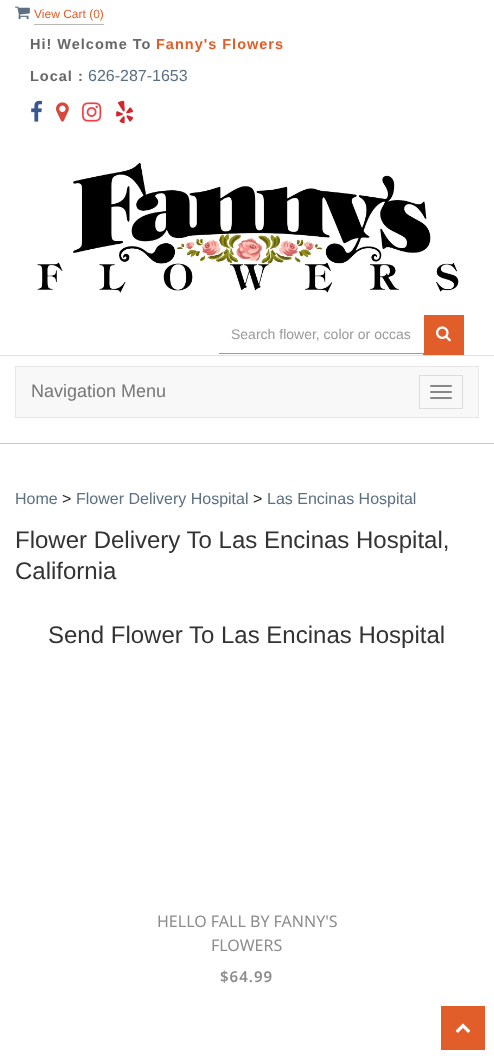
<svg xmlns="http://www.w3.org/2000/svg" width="494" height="1059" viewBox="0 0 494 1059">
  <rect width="100%" height="100%" fill="#ffffff"/>
  <rect x="0" y="443" width="494" height="1" fill="#f1bea6"/>
  <rect x="0" y="355" width="494" height="1" fill="#e2e2e2"/>
  <image x="15" y="6" width="15" height="14" href="img1.png"/>
  <text x="34" y="18" font-family="Liberation Sans" font-size="12" fill="#e15e2a">View Cart (0)</text>
  <rect x="34" y="24" width="70" height="1" fill="#b7b7b7"/>
  <text x="30" y="49" font-family="Liberation Sans" font-size="14.5" font-weight="bold" letter-spacing="1" fill="#676767">Hi! Welcome To</text>
  <text x="156" y="49" font-family="Liberation Sans" font-size="14.5" font-weight="bold" letter-spacing="1" fill="#e15e2a">Fanny's Flowers</text>
  <text x="30" y="81" font-family="Liberation Sans" font-size="14.5" font-weight="bold" letter-spacing="1" fill="#676767">Local :</text>
  <text x="88" y="81" font-family="Liberation Sans" font-size="16" fill="#5b7083">626-287-1653</text>
  <image x="31" y="100" width="11" height="22" href="img2.png"/>
  <image x="56" y="102" width="13" height="20" href="img3.png"/>
  <image x="82" y="102" width="20" height="20" href="img4.png"/>
  <image x="116" y="100" width="18" height="24" href="img5.png"/>
  <image x="37" y="162" width="422" height="131" href="img6.png"/>
  <rect x="423" y="315" width="41" height="40" fill="#e15e2a"/>
  <rect x="423" y="315" width="1" height="38" fill="#ffffff"/>
  <rect x="219" y="353" width="205" height="1" fill="#f05cf5"/>
  <text x="231" y="339" font-family="Liberation Sans" font-size="14" fill="#999999">Search flower, color or occas</text>
  <image x="436" y="326" width="15" height="16" href="img7.png"/>
  <rect x="15.5" y="366.5" width="463" height="51" fill="#f8f8f8" stroke="#e7e7e7"/>
  <text x="31" y="397" font-family="Liberation Sans" font-size="18" fill="#777777">Navigation Menu</text>
  <rect x="419.5" y="375.5" width="43" height="33" fill="none" stroke="#dddddd"/>
  <rect x="430" y="385" width="22" height="2" rx="1" fill="#888888"/>
  <rect x="430" y="391" width="22" height="2" rx="1" fill="#888888"/>
  <rect x="430" y="397" width="22" height="2" rx="1" fill="#888888"/>
  <text x="15" y="504" font-family="Liberation Sans" font-size="16" fill="#5b7083">Home</text>
  <text x="62" y="504" font-family="Liberation Sans" font-size="16" fill="#212121">&gt;</text>
  <text x="76" y="504" font-family="Liberation Sans" font-size="16" fill="#5b7083">Flower Delivery Hospital</text>
  <text x="253" y="504" font-family="Liberation Sans" font-size="16" fill="#212121">&gt;</text>
  <text x="267" y="504" font-family="Liberation Sans" font-size="16" fill="#5b7083">Las Encinas Hospital</text>
  <text x="15" y="548" font-family="Liberation Sans" font-size="24" fill="#333333">Flower Delivery To Las Encinas Hospital,</text>
  <text x="15" y="579" font-family="Liberation Sans" font-size="24" fill="#333333">California</text>
  <text x="48" y="643" font-family="Liberation Sans" font-size="24" fill="#333333">Send Flower To Las Encinas Hospital</text>
  <text x="157" y="927" font-family="Noto Sans" font-size="16" fill="#8c8c8c">HELLO FALL BY FANNY'S</text>
  <text x="211" y="951" font-family="Noto Sans" font-size="16" fill="#8c8c8c">FLOWERS</text>
  <text x="220" y="982" font-family="Noto Sans" font-size="15" font-weight="600" letter-spacing="1" fill="#8c8c8c">$64.99</text>
  <rect x="441" y="1006" width="44" height="44" fill="#e15e2a"/>
  <image x="455" y="1023" width="16" height="10" href="img8.png"/>
</svg>
